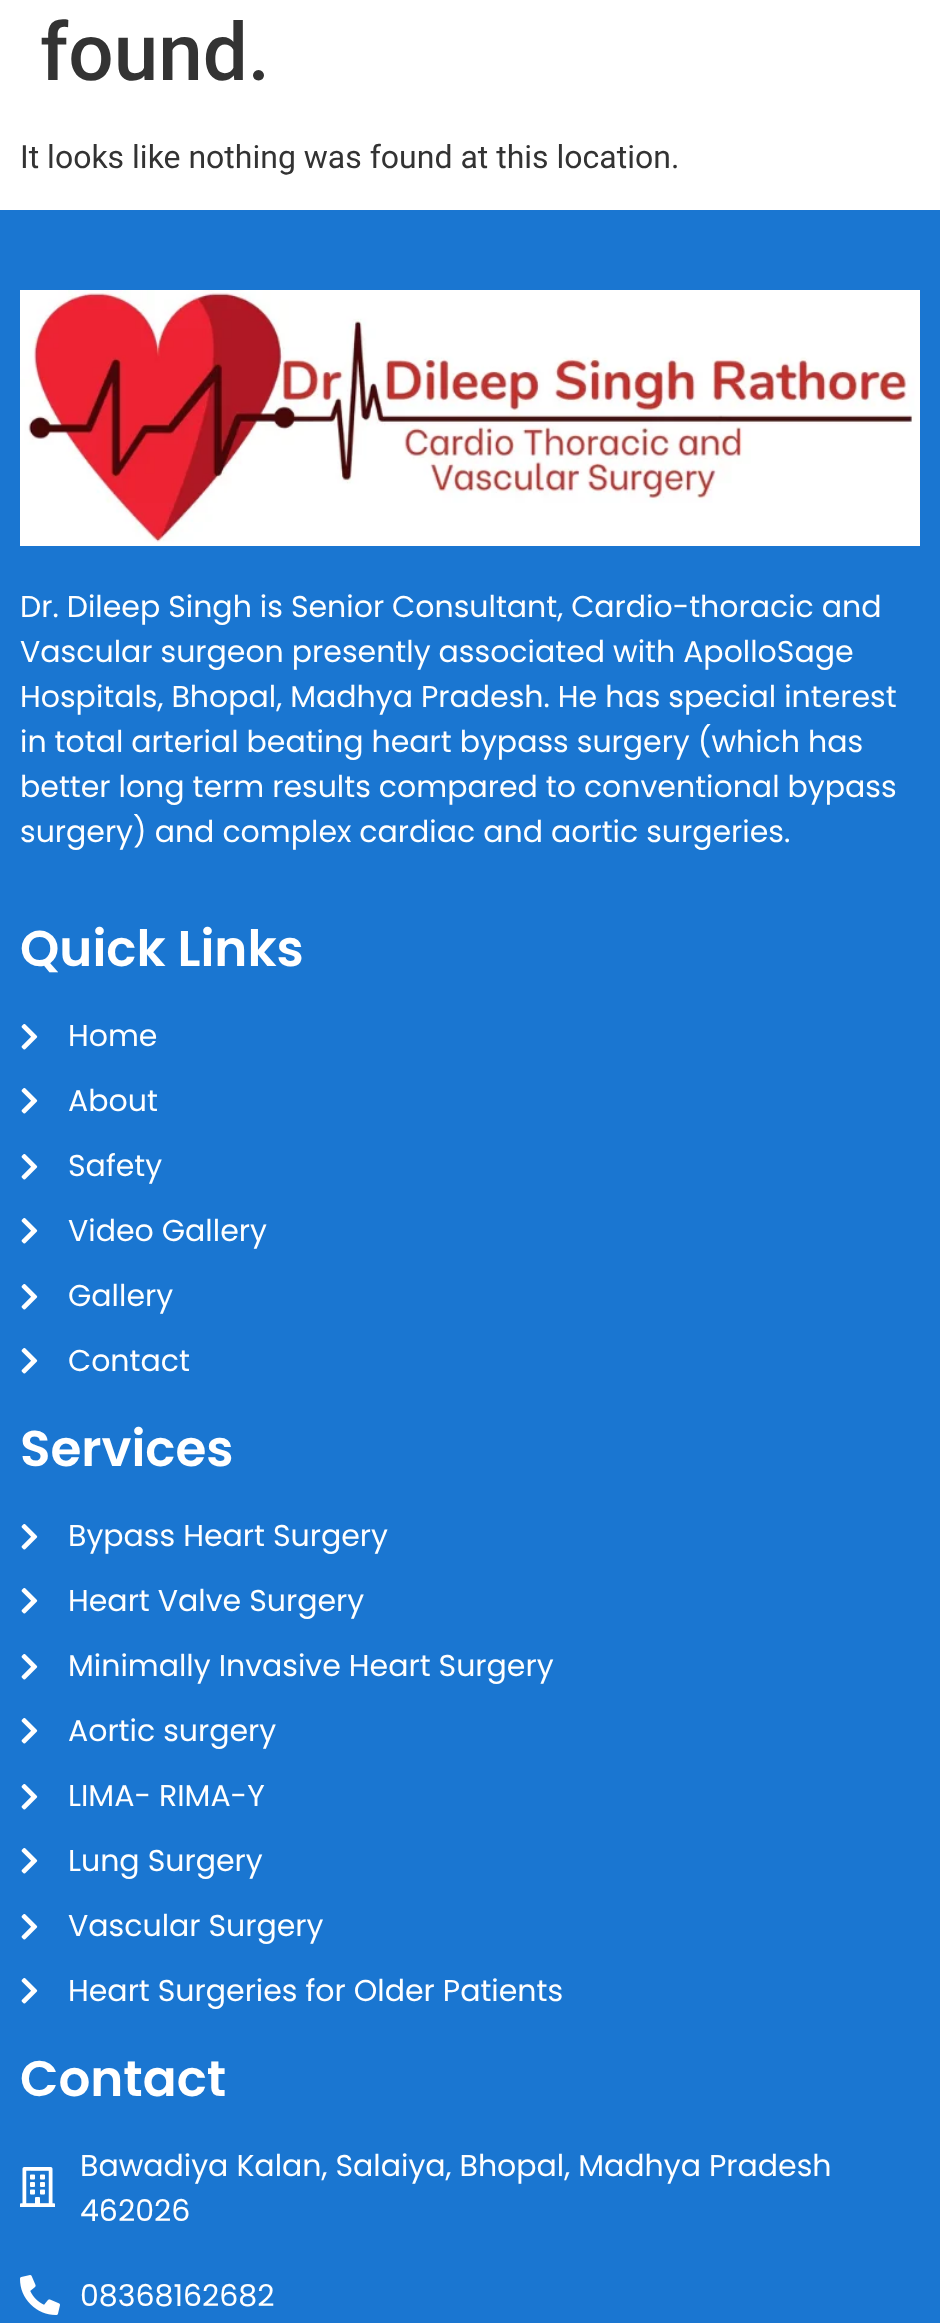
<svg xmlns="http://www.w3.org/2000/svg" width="940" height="2323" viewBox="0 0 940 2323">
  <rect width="100%" height="100%" fill="#ffffff"/>
  <text x="40" y="80" font-family="Roboto" font-size="80" font-weight="500" fill="#333333">found.</text>
  <text x="20" y="168" font-family="Roboto" font-size="32" fill="#333333">It looks like nothing was found at this location.</text>
  <rect x="0" y="210" width="940" height="2113" fill="#1a76d1"/>
  <image x="20" y="290" width="900" height="256" href="img1.png"/>
  <text x="20" y="617" font-family="Poppins" font-size="30" fill="#ffffff">Dr. Dileep Singh is Senior Consultant, Cardio-thoracic and</text>
  <text x="20" y="662" font-family="Poppins" font-size="30" fill="#ffffff">Vascular surgeon presently associated with ApolloSage</text>
  <text x="20" y="707" font-family="Poppins" font-size="30" fill="#ffffff">Hospitals, Bhopal, Madhya Pradesh. He has special interest</text>
  <text x="20" y="752" font-family="Poppins" font-size="30" fill="#ffffff">in total arterial beating heart bypass surgery (which has</text>
  <text x="20" y="797" font-family="Poppins" font-size="30" fill="#ffffff">better long term results compared to conventional bypass</text>
  <text x="20" y="842" font-family="Poppins" font-size="30" fill="#ffffff">surgery) and complex cardiac and aortic surgeries.</text>
  <text x="20" y="966" font-family="Poppins" font-size="50" font-weight="600" fill="#ffffff">Quick Links</text>
  <image x="21" y="1024" width="17" height="26" href="img2.png"/>
  <text x="68" y="1046" font-family="Poppins" font-size="30" fill="#ffffff">Home</text>
  <image x="21" y="1088" width="17" height="26" href="img2.png"/>
  <text x="68" y="1111" font-family="Poppins" font-size="30" fill="#ffffff">About</text>
  <image x="21" y="1154" width="17" height="26" href="img2.png"/>
  <text x="68" y="1176" font-family="Poppins" font-size="30" fill="#ffffff">Safety</text>
  <image x="21" y="1218" width="17" height="26" href="img2.png"/>
  <text x="68" y="1241" font-family="Poppins" font-size="30" fill="#ffffff">Video Gallery</text>
  <image x="21" y="1284" width="17" height="26" href="img2.png"/>
  <text x="68" y="1306" font-family="Poppins" font-size="30" fill="#ffffff">Gallery</text>
  <image x="21" y="1348" width="17" height="26" href="img2.png"/>
  <text x="68" y="1371" font-family="Poppins" font-size="30" fill="#ffffff">Contact</text>
  <text x="20" y="1466" font-family="Poppins" font-size="50" font-weight="600" fill="#ffffff">Services</text>
  <image x="21" y="1524" width="17" height="26" href="img2.png"/>
  <text x="68" y="1546" font-family="Poppins" font-size="30" fill="#ffffff">Bypass Heart Surgery</text>
  <image x="21" y="1588" width="17" height="26" href="img2.png"/>
  <text x="68" y="1611" font-family="Poppins" font-size="30" fill="#ffffff">Heart Valve Surgery</text>
  <image x="21" y="1654" width="17" height="26" href="img2.png"/>
  <text x="68" y="1676" font-family="Poppins" font-size="30" fill="#ffffff">Minimally Invasive Heart Surgery</text>
  <image x="21" y="1718" width="17" height="26" href="img2.png"/>
  <text x="68" y="1741" font-family="Poppins" font-size="30" fill="#ffffff">Aortic surgery</text>
  <image x="21" y="1784" width="17" height="26" href="img2.png"/>
  <text x="68" y="1806" font-family="Poppins" font-size="30" fill="#ffffff">LIMA- RIMA-Y</text>
  <image x="21" y="1848" width="17" height="26" href="img2.png"/>
  <text x="68" y="1871" font-family="Poppins" font-size="30" fill="#ffffff">Lung Surgery</text>
  <image x="21" y="1914" width="17" height="26" href="img2.png"/>
  <text x="68" y="1936" font-family="Poppins" font-size="30" fill="#ffffff">Vascular Surgery</text>
  <image x="21" y="1978" width="17" height="26" href="img2.png"/>
  <text x="68" y="2001" font-family="Poppins" font-size="30" fill="#ffffff">Heart Surgeries for Older Patients</text>
  <text x="20" y="2096" font-family="Poppins" font-size="50" font-weight="600" fill="#ffffff">Contact</text>
  <image x="20" y="2167" width="35" height="40" href="img3.png"/>
  <text x="80" y="2176" font-family="Poppins" font-size="30" fill="#ffffff">Bawadiya Kalan, Salaiya, Bhopal, Madhya Pradesh</text>
  <text x="80" y="2221" font-family="Poppins" font-size="30" fill="#ffffff">462026</text>
  <image x="20" y="2275" width="40" height="40" href="img4.png"/>
  <text x="80" y="2306" font-family="Poppins" font-size="30" fill="#ffffff">08368162682</text>
</svg>
